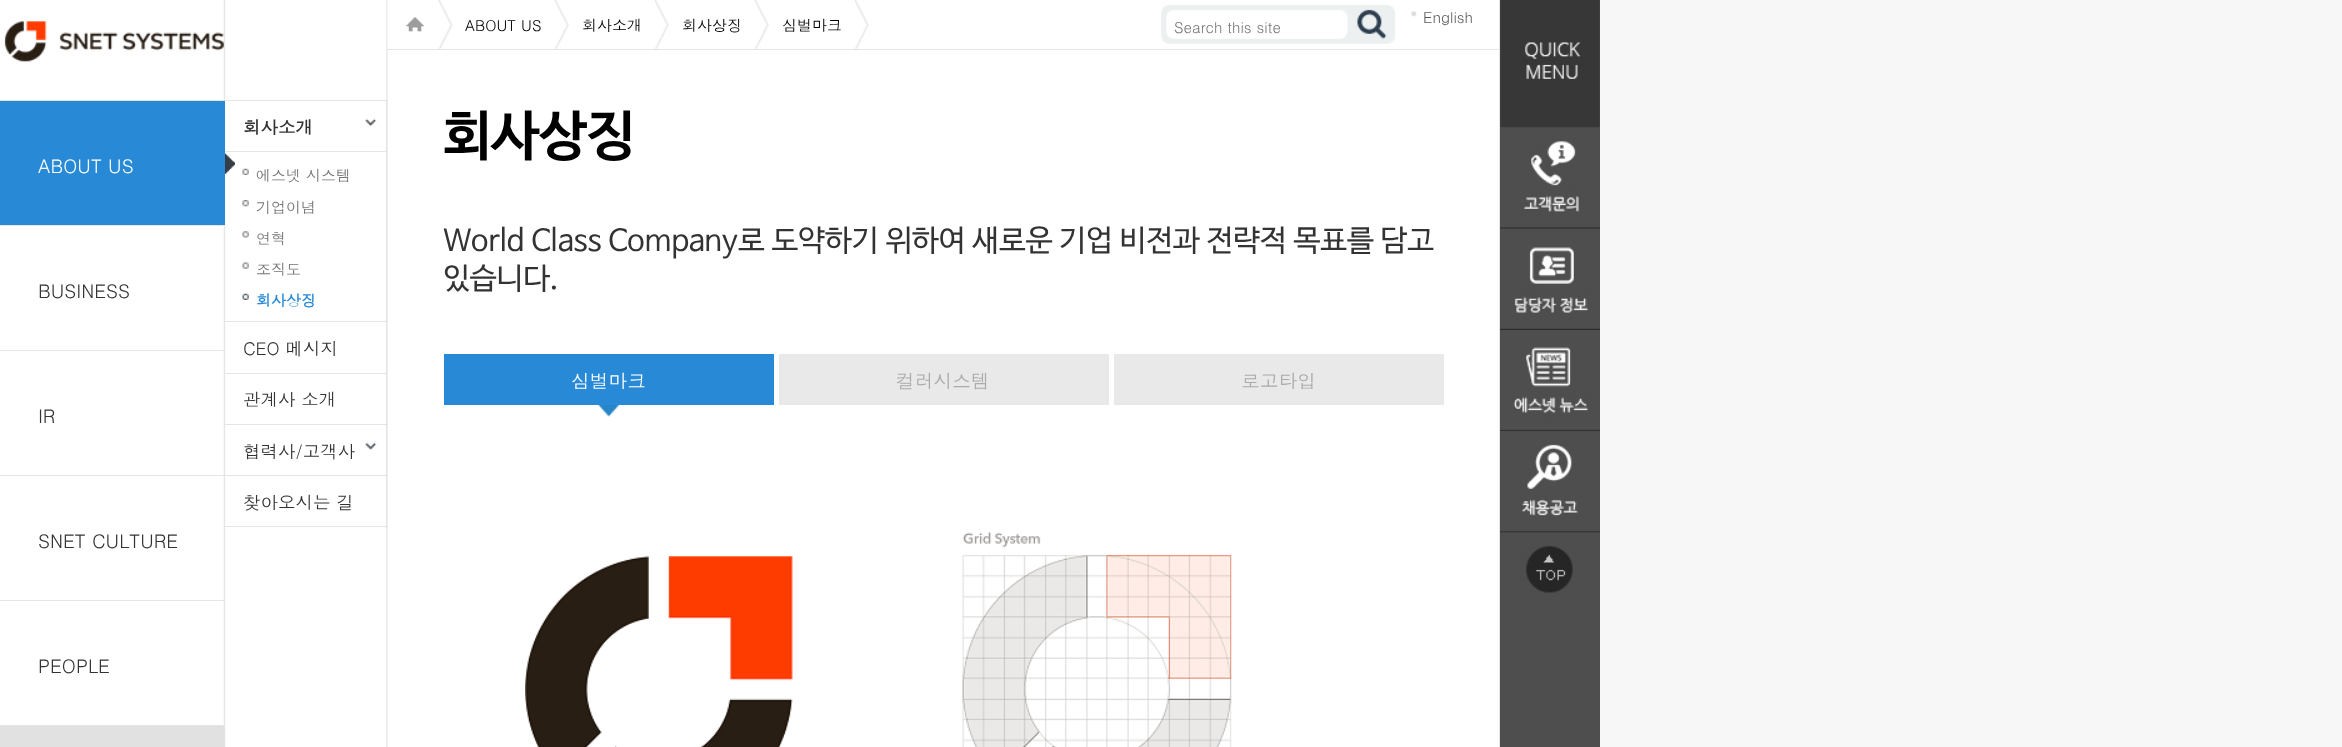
<svg xmlns="http://www.w3.org/2000/svg" width="2342" height="747" viewBox="0 0 2342 747">
  <rect width="100%" height="100%" fill="#f7f7f7"/>
  <image x="0" y="0" width="388" height="747" href="img1.png"/>
  <image x="4" y="21" width="220" height="41" href="img2.png"/>
  <rect x="0" y="101" width="225" height="124" fill="#288ad6"/>
  <rect x="0" y="100" width="225" height="1" fill="#e5e5e5"/>
  <text x="38" y="173" font-family="Dotum" font-size="18.75" fill="#ffffff">ABOUT US</text>
  <image x="225" y="153" width="10" height="21" href="img3.png"/>
  <rect x="386" y="100" width="1" height="428" fill="#e5e5e5"/>
  <rect x="225" y="526" width="163" height="1" fill="#e5e5e5"/>
  <rect x="225" y="100" width="163" height="1" fill="#e5e5e5"/>
  <text x="243" y="134" font-family="Dotum" font-size="17.5" font-weight="bold" fill="#333333">회사소개</text>
  <image x="365" y="118" width="12" height="9" href="img4.png"/>
  <rect x="225" y="151" width="161" height="1" fill="#e5e5e5"/>
  <image x="242" y="168" width="7" height="7" href="img5.png"/>
  <text x="256" y="181" font-family="Dotum" font-size="15" fill="#757575">에스넷 시스템</text>
  <image x="242" y="200" width="7" height="7" href="img6.png"/>
  <text x="256" y="213" font-family="Dotum" font-size="15" fill="#757575">기업이념</text>
  <image x="242" y="231" width="7" height="7" href="img7.png"/>
  <text x="256" y="244" font-family="Dotum" font-size="15" fill="#757575">연혁</text>
  <image x="242" y="262" width="7" height="7" href="img8.png"/>
  <text x="256" y="275" font-family="Dotum" font-size="15" fill="#757575">조직도</text>
  <image x="242" y="293" width="7" height="7" href="img9.png"/>
  <text x="256" y="306" font-family="Dotum" font-size="15" font-weight="bold" fill="#288ad6">회사상징</text>
  <rect x="225" y="321" width="163" height="1" fill="#e5e5e5"/>
  <text x="243" y="355" font-family="Dotum" font-size="17.5" fill="#333333">CEO 메시지</text>
  <rect x="225" y="373" width="163" height="1" fill="#e5e5e5"/>
  <text x="243" y="406" font-family="Dotum" font-size="17.5" fill="#333333">관계사 소개</text>
  <rect x="225" y="424" width="163" height="1" fill="#e5e5e5"/>
  <text x="243" y="458" font-family="Dotum" font-size="17.5" fill="#333333">협력사/고객사</text>
  <image x="365" y="442" width="12" height="8" href="img10.png"/>
  <rect x="225" y="475" width="163" height="1" fill="#e5e5e5"/>
  <text x="243" y="509" font-family="Dotum" font-size="17.5" fill="#333333">찾아오시는 길</text>
  <rect x="0" y="225" width="225" height="1" fill="#e5e5e5"/>
  <text x="38" y="298" font-family="Dotum" font-size="18.75" fill="#333333">BUSINESS</text>
  <rect x="0" y="350" width="225" height="1" fill="#e5e5e5"/>
  <text x="38" y="423" font-family="Dotum" font-size="18.75" fill="#333333">IR</text>
  <rect x="0" y="475" width="225" height="1" fill="#e5e5e5"/>
  <text x="38" y="548" font-family="Dotum" font-size="18.75" fill="#333333">SNET CULTURE</text>
  <rect x="0" y="600" width="225" height="1" fill="#e5e5e5"/>
  <text x="38" y="673" font-family="Dotum" font-size="18.75" fill="#333333">PEOPLE</text>
  <rect x="0" y="726" width="225" height="21" fill="#e1e1e1"/>
  <rect x="0" y="725" width="225" height="1" fill="#e5e5e5"/>
  <rect x="388" y="0" width="1111" height="747" fill="#ffffff"/>
  <rect x="1499" y="0" width="1" height="747" fill="#e5e5e5"/>
  <rect x="388" y="49" width="1111" height="1" fill="#e5e5e5"/>
  <image x="387" y="0" width="37" height="48" href="img11.png"/>
  <image x="438" y="0" width="15" height="49" href="img12.png"/>
  <text x="465" y="31" font-family="Dotum" font-size="15" fill="#000000">ABOUT US</text>
  <image x="554" y="0" width="15" height="49" href="img13.png"/>
  <text x="582" y="31" font-family="Dotum" font-size="15" fill="#000000">회사소개</text>
  <image x="654" y="0" width="15" height="49" href="img14.png"/>
  <text x="682" y="31" font-family="Dotum" font-size="15" fill="#000000">회사상징</text>
  <image x="754" y="0" width="15" height="49" href="img15.png"/>
  <text x="782" y="31" font-family="Dotum" font-size="15" fill="#000000">심벌마크</text>
  <image x="854" y="0" width="15" height="49" href="img13.png"/>
  <image x="1411" y="11" width="6" height="6" href="img16.png"/>
  <text x="1423" y="23" font-family="Dotum" font-size="15" fill="#595959">English</text>
  <image x="1161" y="5" width="234" height="39" href="img17.png"/>
  <text x="1174" y="33" font-family="Dotum" font-size="15" fill="#757575">Search this site</text>
  <text x="443" y="153" font-family="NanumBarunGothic" font-size="54" font-weight="bold" fill="#000000">회사상징</text>
  <text x="443" y="250" font-family="NanumBarunGothic" font-size="30" fill="#333333">World Class Company로 도약하기 위하여 새로운 기업 비전과 전략적 목표를 담고</text>
  <text x="443" y="288" font-family="NanumBarunGothic" font-size="30" fill="#333333">있습니다.</text>
  <rect x="444" y="354" width="330" height="51" fill="#288ad6"/>
  <text x="571" y="388" font-family="Dotum" font-size="18.75" fill="#ffffff">심벌마크</text>
  <image x="598" y="405" width="21" height="12" href="img18.png"/>
  <rect x="779" y="354" width="330" height="51" fill="#e9e9e9"/>
  <text x="896" y="388" font-family="Dotum" font-size="18.75" fill="#ababab">컬러시스템</text>
  <rect x="1114" y="354" width="330" height="51" fill="#e9e9e9"/>
  <text x="1241" y="388" font-family="Dotum" font-size="18.75" fill="#ababab">로고타입</text>
  <image x="525" y="556" width="268" height="191" href="img19.png"/>
  <image x="962" y="532" width="270" height="215" href="img20.png"/>
  <rect x="1500" y="127" width="100" height="620" fill="#4e4e4e"/>
  <image x="1500" y="0" width="100" height="128" href="img21.png"/>
  <image x="1500" y="127" width="100" height="102" href="img22.png"/>
  <image x="1500" y="228" width="100" height="102" href="img23.png"/>
  <image x="1500" y="347" width="100" height="85" href="img24.png"/>
  <image x="1500" y="431" width="100" height="102" href="img25.png"/>
  <image x="1500" y="532" width="100" height="61" href="img26.png"/>
</svg>
